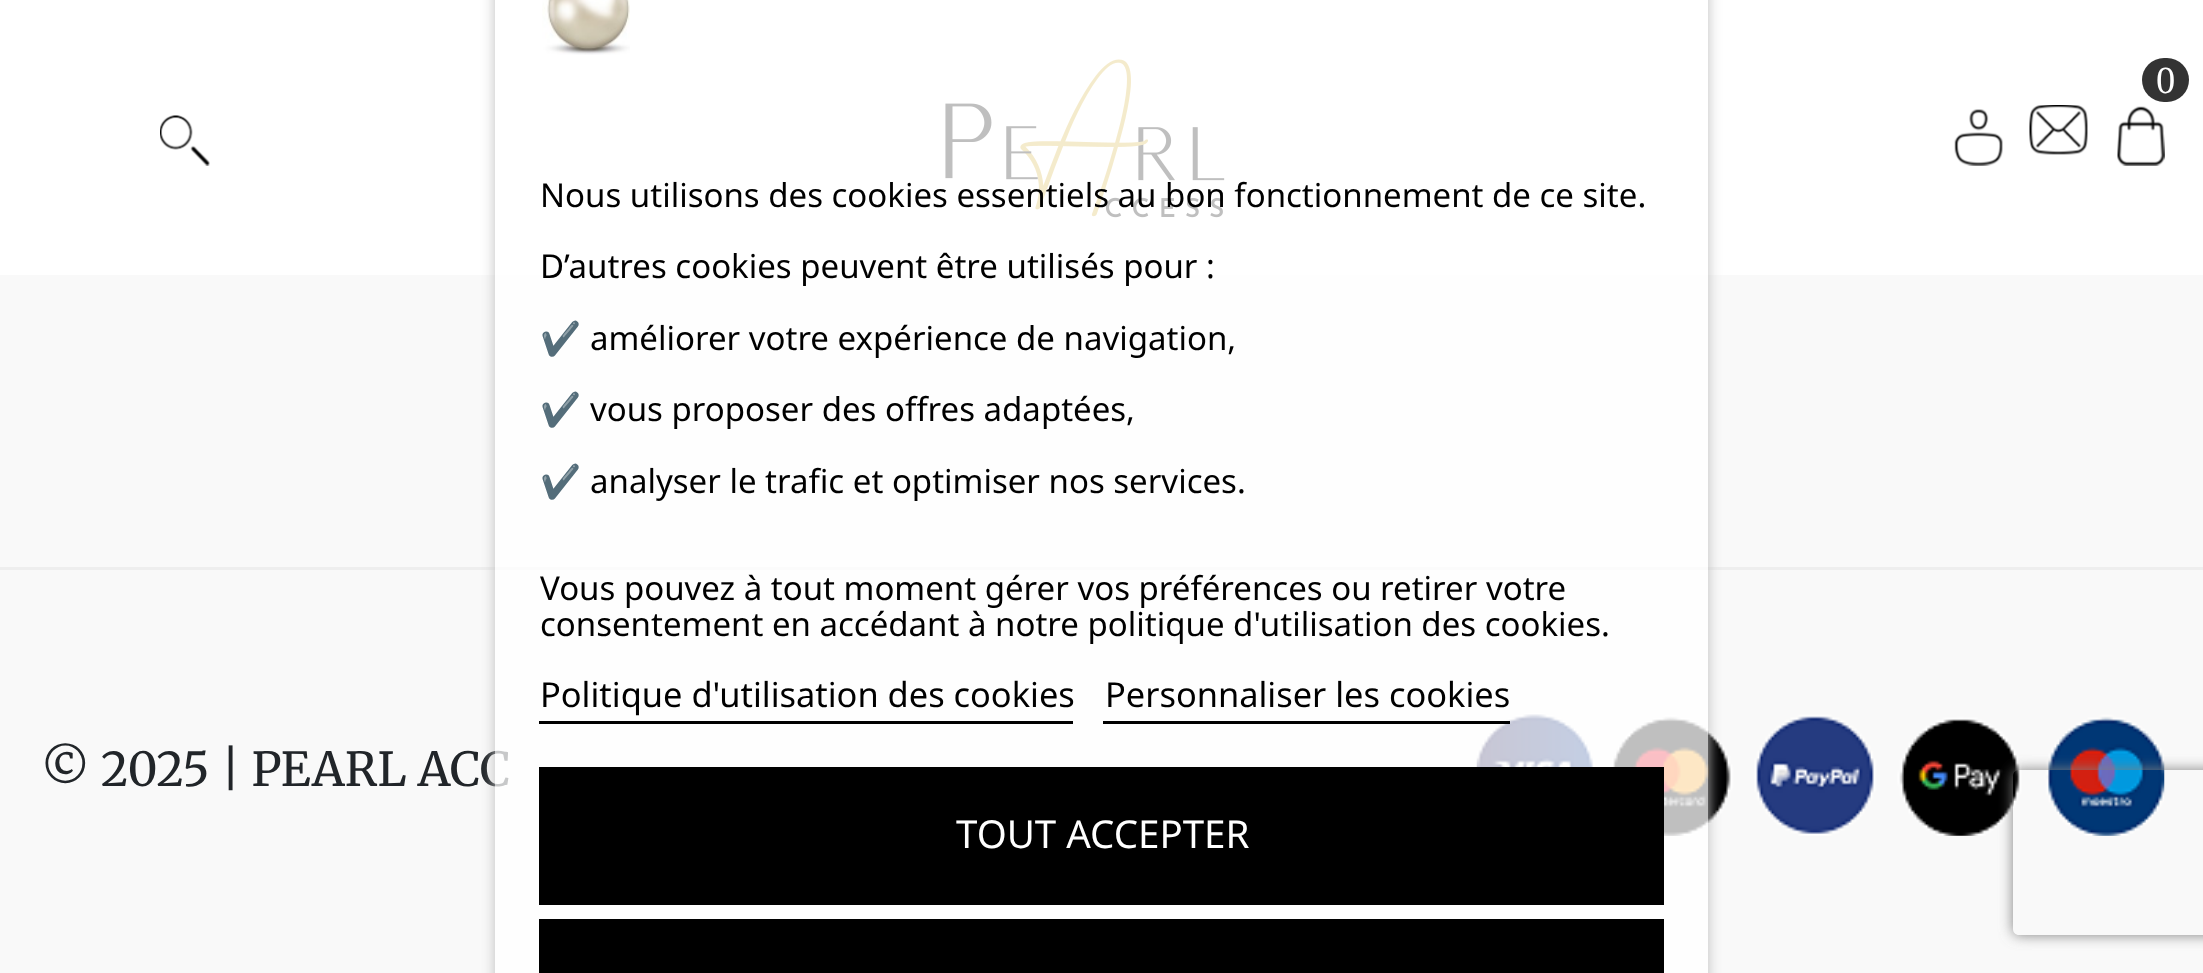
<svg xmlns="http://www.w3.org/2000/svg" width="2203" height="973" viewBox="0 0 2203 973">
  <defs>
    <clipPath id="clip1"><path d="M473 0H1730V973H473ZM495-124H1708V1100H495Z" clip-rule="evenodd"/></clipPath>
    <filter id="blur1" x="-50%" y="-200%" width="200%" height="500%"><feGaussianBlur stdDeviation="7"/></filter>
    <clipPath id="clip2"><path d="M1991 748H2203V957H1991ZM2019 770H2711C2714.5 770 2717 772.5 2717 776V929C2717 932.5 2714.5 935 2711 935H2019C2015.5 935 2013 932.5 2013 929V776C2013 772.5 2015.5 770 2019 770Z" clip-rule="evenodd"/></clipPath>
  </defs>
  <rect width="100%" height="100%" fill="#f9f9f9"/>
  <rect x="0" y="0" width="2203" height="275" fill="#ffffff"/>
  <image x="945" y="59" width="280" height="159" href="img1.png"/>
  <rect x="2142" y="58" width="47" height="44" rx="22" fill="#333333"/>
  <text x="2156" y="93" font-family="Liberation Serif" font-size="38.5" fill="#ffffff">0</text>
  <image x="2117" y="106" width="48" height="60" href="img2.png"/>
  <image x="160" y="115" width="50" height="51" href="img3.png"/>
  <image x="1954" y="109" width="49" height="57" href="img4.png"/>
  <image x="2029" y="105" width="59" height="50" href="img5.png"/>
  <rect x="0" y="567" width="2203" height="3" fill="#eeeeee"/>
  <text x="41" y="786" font-family="Merriweather" font-size="46.75" fill="#212529">© 2025 | PEARL ACC</text>
  <image x="1476" y="713" width="689" height="123" href="img6.png"/>
  <g clip-path="url(#clip1)">
    <rect x="495" y="-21" width="1213" height="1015" fill="#bdbdbd" filter="url(#blur1)"/>
  </g>
  <rect x="495" y="0" width="1213" height="973" fill="#ffffff" fill-opacity="0.75"/>
  <image x="542" y="0" width="88" height="55" href="img7.png"/>
  <text x="540" y="207" font-family="Noto Sans" font-size="33" fill="#000000">Nous utilisons des cookies essentiels au bon fonctionnement de ce site.</text>
  <text x="540" y="278" font-family="Noto Sans" font-size="33" fill="#000000">D’autres cookies peuvent être utilisés pour :</text>
  <text x="540" y="350" font-family="Noto Color Emoji" font-size="33" fill="#000000">✔️</text>
  <text x="590" y="350" font-family="Noto Sans" font-size="33" fill="#000000">améliorer votre expérience de navigation,</text>
  <text x="540" y="421" font-family="Noto Color Emoji" font-size="33" fill="#000000">✔️</text>
  <text x="590" y="421" font-family="Noto Sans" font-size="33" fill="#000000">vous proposer des offres adaptées,</text>
  <text x="540" y="493" font-family="Noto Color Emoji" font-size="33" fill="#000000">✔️</text>
  <text x="590" y="493" font-family="Noto Sans" font-size="33" fill="#000000">analyser le trafic et optimiser nos services.</text>
  <text x="540" y="600" font-family="Noto Sans" font-size="33" fill="#000000">Vous pouvez à tout moment gérer vos préférences ou retirer votre</text>
  <text x="540" y="636" font-family="Noto Sans" font-size="33" fill="#000000">consentement en accédant à notre politique d'utilisation des cookies.</text>
  <text x="540" y="707" font-family="Noto Sans" font-size="34.4" fill="#000000">Politique d'utilisation des cookies</text>
  <rect x="539" y="721" width="534" height="3" fill="#000000"/>
  <text x="1105" y="707" font-family="Noto Sans" font-size="34.4" fill="#000000">Personnaliser les cookies</text>
  <rect x="1103" y="721" width="407" height="3" fill="#000000"/>
  <rect x="539" y="767" width="1125" height="138" fill="#000000"/>
  <text x="956" y="848" font-family="Noto Sans" font-size="38.5" fill="#ffffff">TOUT ACCEPTER</text>
  <rect x="539" y="919" width="1125" height="54" fill="#000000"/>
  <g clip-path="url(#clip2)">
    <rect x="2013" y="770" width="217" height="165" rx="6" fill="#808080" filter="url(#blur1)"/>
  </g>
</svg>
